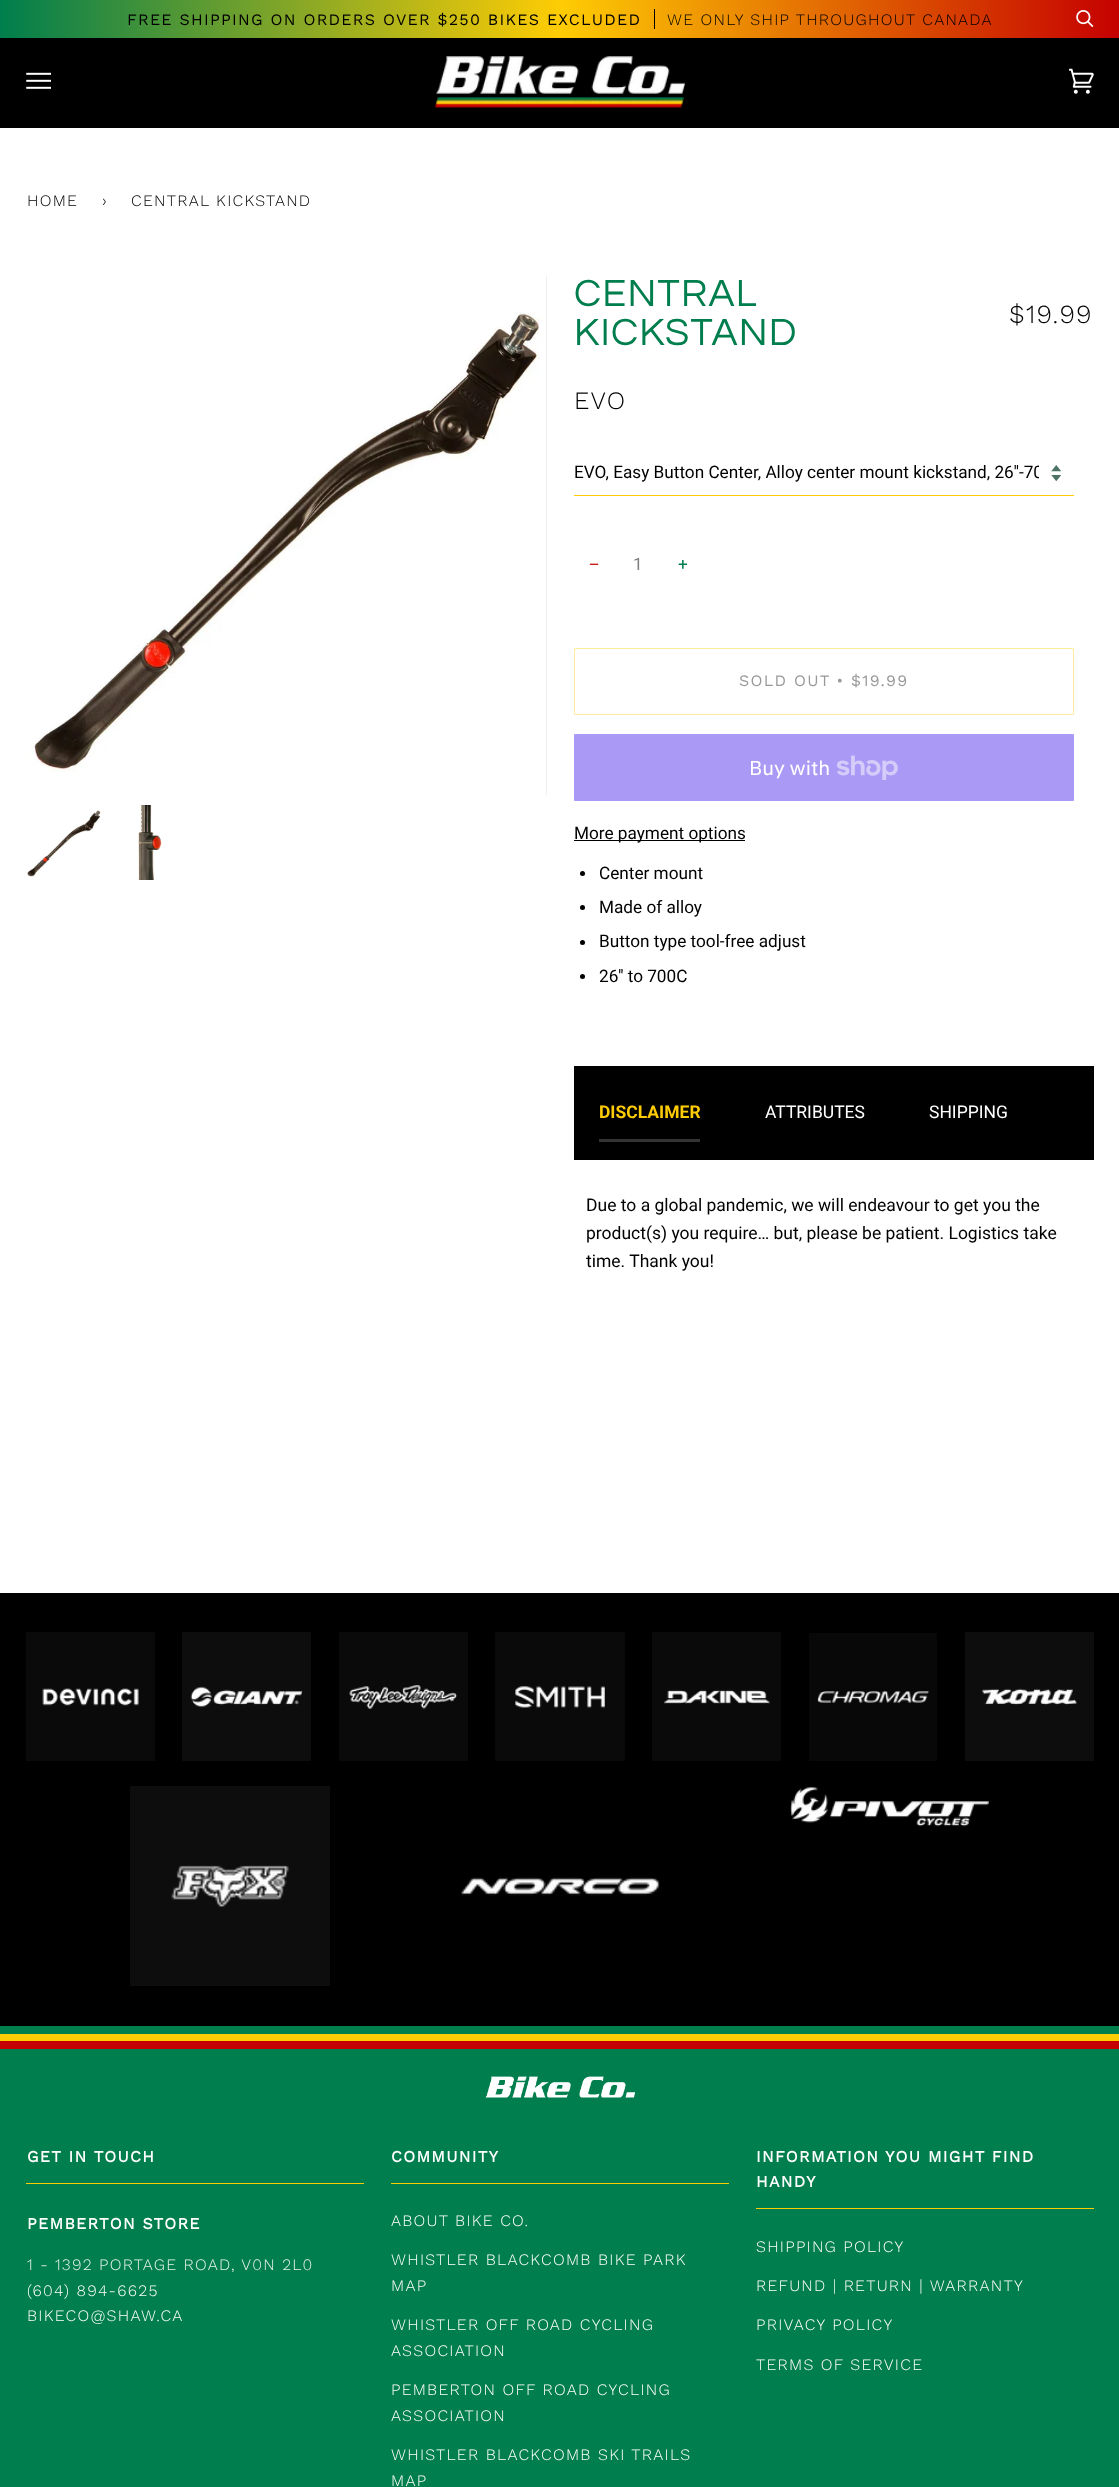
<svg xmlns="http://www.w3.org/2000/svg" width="1119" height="2487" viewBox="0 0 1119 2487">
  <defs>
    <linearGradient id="g1" gradientUnits="userSpaceOnUse" x1="0" y1="19" x2="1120" y2="19"><stop offset="0" stop-color="#007e4d"/><stop offset="0.5" stop-color="#fecc04"/><stop offset="1" stop-color="#c50000"/></linearGradient>
    <clipPath id="clip1"><rect x="574" y="460" width="465" height="25"/></clipPath>
  </defs>
  <rect width="100%" height="100%" fill="#ffffff"/>
  <rect x="0" y="0" width="1119" height="38" fill="url(#g1)"/>
  <text x="127" y="25" font-family="Work Sans" font-size="16" letter-spacing="1.25" fill="#000000">FREE SHIPPING ON ORDERS OVER $250 BIKES EXCLUDED</text>
  <text x="667" y="25" font-family="Work Sans" font-size="16" font-weight="300" letter-spacing="1.25" fill="#000000">WE ONLY SHIP THROUGHOUT CANADA</text>
  <rect x="654" y="9" width="1" height="20" fill="#000000"/>
  <image x="1076" y="10" width="18" height="18" href="img1.png"/>
  <rect x="0" y="38" width="1119" height="90" fill="#000000"/>
  <image x="26" y="72" width="25" height="17" href="img2.png"/>
  <image x="435" y="56" width="250" height="52" href="img3.png"/>
  <image x="1069" y="68" width="25" height="26" href="img4.png"/>
  <text x="27" y="206" font-family="Work Sans" font-size="16" font-weight="300" letter-spacing="1.25" fill="#000000">HOME</text>
  <text x="102" y="206" font-family="Work Sans" font-size="16" font-weight="300" letter-spacing="1.25" fill="#000000">›</text>
  <text x="131" y="206" font-family="Work Sans" font-size="16" font-weight="300" letter-spacing="1.25" fill="#000000">CENTRAL KICKSTAND</text>
  <rect x="546" y="275" width="1" height="520" fill="#f1efee"/>
  <image x="26" y="275" width="520" height="520" href="img5.png"/>
  <image x="27" y="810" width="74" height="67" href="img6.png"/>
  <image x="138" y="805" width="24" height="75" href="img7.png"/>
  <text x="574" y="306" font-family="Questrial" font-size="39.25" letter-spacing="1.25" fill="#007e4d">CENTRAL</text>
  <text x="574" y="345" font-family="Questrial" font-size="39.25" letter-spacing="1.25" fill="#007e4d">KICKSTAND</text>
  <text x="1009" y="323" font-family="Work Sans" font-size="26" font-weight="300" letter-spacing="1.25" fill="#000000">$19.99</text>
  <text x="574" y="409" font-family="Work Sans" font-size="25" font-weight="300" letter-spacing="1.25" fill="#000000">EVO</text>
  <image x="1051" y="465" width="10" height="16" href="img8.png"/>
  <rect x="574" y="495" width="500" height="1" fill="#fecc04"/>
  <g clip-path="url(#clip1)">
    <text x="574" y="478" font-family="Roboto" font-size="17.2" fill="#000000">EVO, Easy Button Center, Alloy center mount kickstand, 26''-70</text>
  </g>
  <text x="589" y="570" font-family="Liberation Sans" font-size="17.2" fill="#c50000">−</text>
  <text x="633" y="570" font-family="Roboto" font-size="17.2" fill="#808080">1</text>
  <text x="678" y="570" font-family="Roboto" font-size="17.2" fill="#007e4d">+</text>
  <rect x="574.5" y="648.5" width="499" height="66" rx="0.5" fill="none" stroke="#ffeb9b"/>
  <text x="739" y="686" font-family="Work Sans" font-size="16" letter-spacing="1.25" fill="#999999">SOLD OUT</text>
  <text x="837" y="686" font-family="Liberation Serif" font-size="16" letter-spacing="1.25" fill="#999999">•</text>
  <text x="851" y="686" font-family="Work Sans" font-size="16" letter-spacing="1.25" fill="#999999">$19.99</text>
  <rect x="574" y="734" width="500" height="67" rx="1" fill="#aa99f5"/>
  <text x="749" y="775" font-family="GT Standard" font-size="20" fill="#ffffff">Buy with</text>
  <image x="837" y="755" width="61" height="25" href="img9.png"/>
  <rect x="574" y="840" width="171" height="1" fill="#000000"/>
  <text x="574" y="839" font-family="Roboto" font-size="17.2" fill="#000000">More payment options</text>
  <circle cx="582.5" cy="873.5" r="2.5" fill="#000000"/>
  <text x="599" y="879" font-family="Roboto" font-size="17.2" fill="#000000">Center mount</text>
  <circle cx="582.5" cy="907.5" r="2.5" fill="#000000"/>
  <text x="599" y="913" font-family="Roboto" font-size="17.2" fill="#000000">Made of alloy</text>
  <circle cx="582.5" cy="942.5" r="2.5" fill="#000000"/>
  <text x="599" y="947" font-family="Roboto" font-size="17.2" fill="#000000">Button type tool-free adjust</text>
  <circle cx="582.5" cy="976.5" r="2.5" fill="#000000"/>
  <text x="599" y="982" font-family="Roboto" font-size="17.2" fill="#000000">26'' to 700C</text>
  <rect x="574" y="1066" width="520" height="94" fill="#000000"/>
  <rect x="599" y="1139" width="101" height="3" fill="#333333"/>
  <text x="599" y="1118" font-family="Roboto" font-size="17.5" font-weight="bold" fill="#fecc04">DISCLAIMER</text>
  <text x="765" y="1118" font-family="Roboto" font-size="17.5" fill="#ffffff">ATTRIBUTES</text>
  <text x="929" y="1118" font-family="Roboto" font-size="17.5" fill="#ffffff">SHIPPING</text>
  <text x="586" y="1211" font-family="Roboto" font-size="17.5" fill="#000000">Due to a global pandemic, we will endeavour to get you the</text>
  <text x="586" y="1239" font-family="Roboto" font-size="17.5" fill="#000000">product(s) you require… but, please be patient. Logistics take</text>
  <text x="586" y="1267" font-family="Roboto" font-size="17.5" fill="#000000">time. Thank you!</text>
  <rect x="0" y="1593" width="1119" height="433" fill="#000000"/>
  <rect x="26" y="1632" width="129" height="129" fill="#0a0a0a"/>
  <image x="42" y="1688" width="97" height="18" href="img10.png"/>
  <rect x="182" y="1632" width="129" height="129" fill="#0d0d0d"/>
  <image x="190" y="1686" width="113" height="22" href="img11.png"/>
  <rect x="339" y="1632" width="129" height="129" fill="#0a0a0a"/>
  <image x="349" y="1685" width="108" height="24" href="img12.png"/>
  <rect x="495" y="1632" width="130" height="129" fill="#0a0a0a"/>
  <image x="515" y="1686" width="90" height="22" href="img13.png"/>
  <rect x="652" y="1632" width="129" height="129" fill="#0a0a0a"/>
  <image x="663" y="1689" width="107" height="15" href="img14.png"/>
  <rect x="809" y="1633" width="128" height="128" fill="#080808"/>
  <image x="817" y="1691" width="113" height="12" href="img15.png"/>
  <rect x="965" y="1632" width="129" height="129" fill="#0d0d0d"/>
  <image x="981" y="1688" width="97" height="18" href="img16.png"/>
  <rect x="130" y="1786" width="200" height="200" fill="#0d0d0d"/>
  <image x="171" y="1865" width="118" height="42" href="img17.png"/>
  <image x="790" y="1786" width="199" height="41" href="img18.png"/>
  <image x="461" y="1877" width="199" height="19" href="img19.png"/>
  <rect x="0" y="2049" width="1119" height="438" fill="#007e4d"/>
  <rect x="0" y="2034" width="1119" height="7" fill="#fecc04"/>
  <rect x="0" y="2026" width="1119" height="8" fill="#007e4d"/>
  <rect x="0" y="2041" width="1119" height="8" fill="#c50000"/>
  <image x="485" y="2076" width="150" height="22" href="img20.png"/>
  <text x="27" y="2162" font-family="Work Sans" font-size="16" font-weight="bold" letter-spacing="1.25" fill="#ffffff">GET IN TOUCH</text>
  <rect x="26" y="2183" width="338" height="1" fill="#fecc04"/>
  <text x="27" y="2229" font-family="Work Sans" font-size="16" font-weight="bold" letter-spacing="1.25" fill="#ffffff">PEMBERTON STORE</text>
  <text x="27" y="2270" font-family="Work Sans" font-size="16" font-weight="300" letter-spacing="1.25" fill="#e6f2ed">1 - 1392 PORTAGE ROAD, V0N 2L0</text>
  <text x="27" y="2296" font-family="Work Sans" font-size="16" font-weight="300" letter-spacing="1.25" fill="#ffffff">(604) 894-6625</text>
  <text x="27" y="2321" font-family="Work Sans" font-size="16" font-weight="300" letter-spacing="1.25" fill="#ffffff">BIKECO@SHAW.CA</text>
  <text x="391" y="2162" font-family="Work Sans" font-size="16" font-weight="bold" letter-spacing="1.25" fill="#ffffff">COMMUNITY</text>
  <rect x="391" y="2183" width="338" height="1" fill="#fecc04"/>
  <text x="391" y="2226" font-family="Work Sans" font-size="16" font-weight="300" letter-spacing="1.25" fill="#ffffff">ABOUT BIKE CO.</text>
  <text x="391" y="2265" font-family="Work Sans" font-size="16" font-weight="300" letter-spacing="1.25" fill="#ffffff">WHISTLER BLACKCOMB BIKE PARK</text>
  <text x="391" y="2291" font-family="Work Sans" font-size="16" font-weight="300" letter-spacing="1.25" fill="#ffffff">MAP</text>
  <text x="391" y="2330" font-family="Work Sans" font-size="16" font-weight="300" letter-spacing="1.25" fill="#ffffff">WHISTLER OFF ROAD CYCLING</text>
  <text x="391" y="2356" font-family="Work Sans" font-size="16" font-weight="300" letter-spacing="1.25" fill="#ffffff">ASSOCIATION</text>
  <text x="391" y="2395" font-family="Work Sans" font-size="16" font-weight="300" letter-spacing="1.25" fill="#ffffff">PEMBERTON OFF ROAD CYCLING</text>
  <text x="391" y="2421" font-family="Work Sans" font-size="16" font-weight="300" letter-spacing="1.25" fill="#ffffff">ASSOCIATION</text>
  <text x="391" y="2460" font-family="Work Sans" font-size="16" font-weight="300" letter-spacing="1.25" fill="#ffffff">WHISTLER BLACKCOMB SKI TRAILS</text>
  <text x="391" y="2486" font-family="Work Sans" font-size="16" font-weight="300" letter-spacing="1.25" fill="#ffffff">MAP</text>
  <text x="756" y="2162" font-family="Work Sans" font-size="16" font-weight="bold" letter-spacing="1.25" fill="#ffffff">INFORMATION YOU MIGHT FIND</text>
  <text x="756" y="2187" font-family="Work Sans" font-size="16" font-weight="bold" letter-spacing="1.25" fill="#ffffff">HANDY</text>
  <rect x="756" y="2208" width="338" height="1" fill="#fecc04"/>
  <text x="756" y="2252" font-family="Work Sans" font-size="16" font-weight="300" letter-spacing="1.25" fill="#ffffff">SHIPPING POLICY</text>
  <text x="756" y="2291" font-family="Work Sans" font-size="16" font-weight="300" letter-spacing="1.25" fill="#ffffff">REFUND | RETURN | WARRANTY</text>
  <text x="756" y="2330" font-family="Work Sans" font-size="16" font-weight="300" letter-spacing="1.25" fill="#ffffff">PRIVACY POLICY</text>
  <text x="756" y="2370" font-family="Work Sans" font-size="16" font-weight="300" letter-spacing="1.25" fill="#ffffff">TERMS OF SERVICE</text>
</svg>
